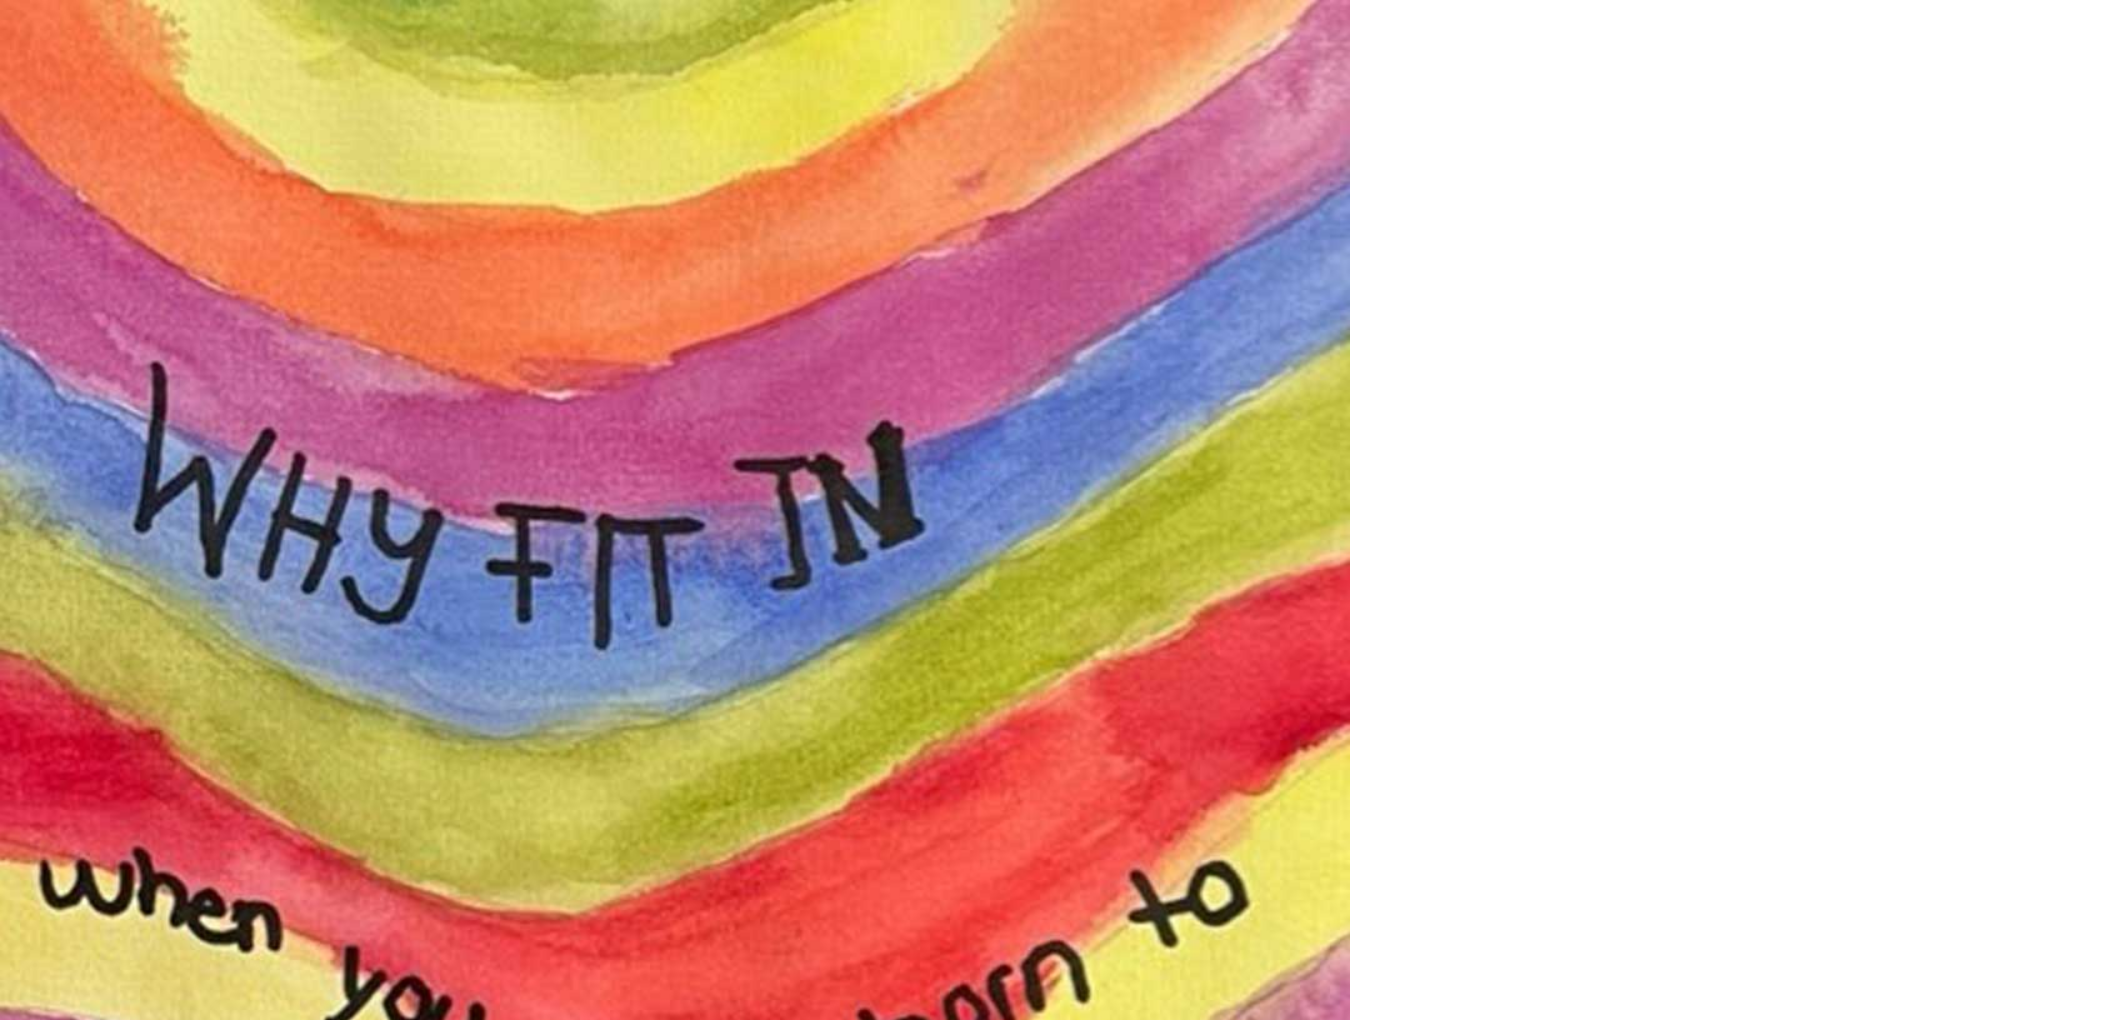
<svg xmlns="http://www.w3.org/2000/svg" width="2121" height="1020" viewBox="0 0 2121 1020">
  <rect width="100%" height="100%" fill="#ffffff"/>
  <image x="0" y="0" width="1350" height="1020" href="img1.png"/>
</svg>
